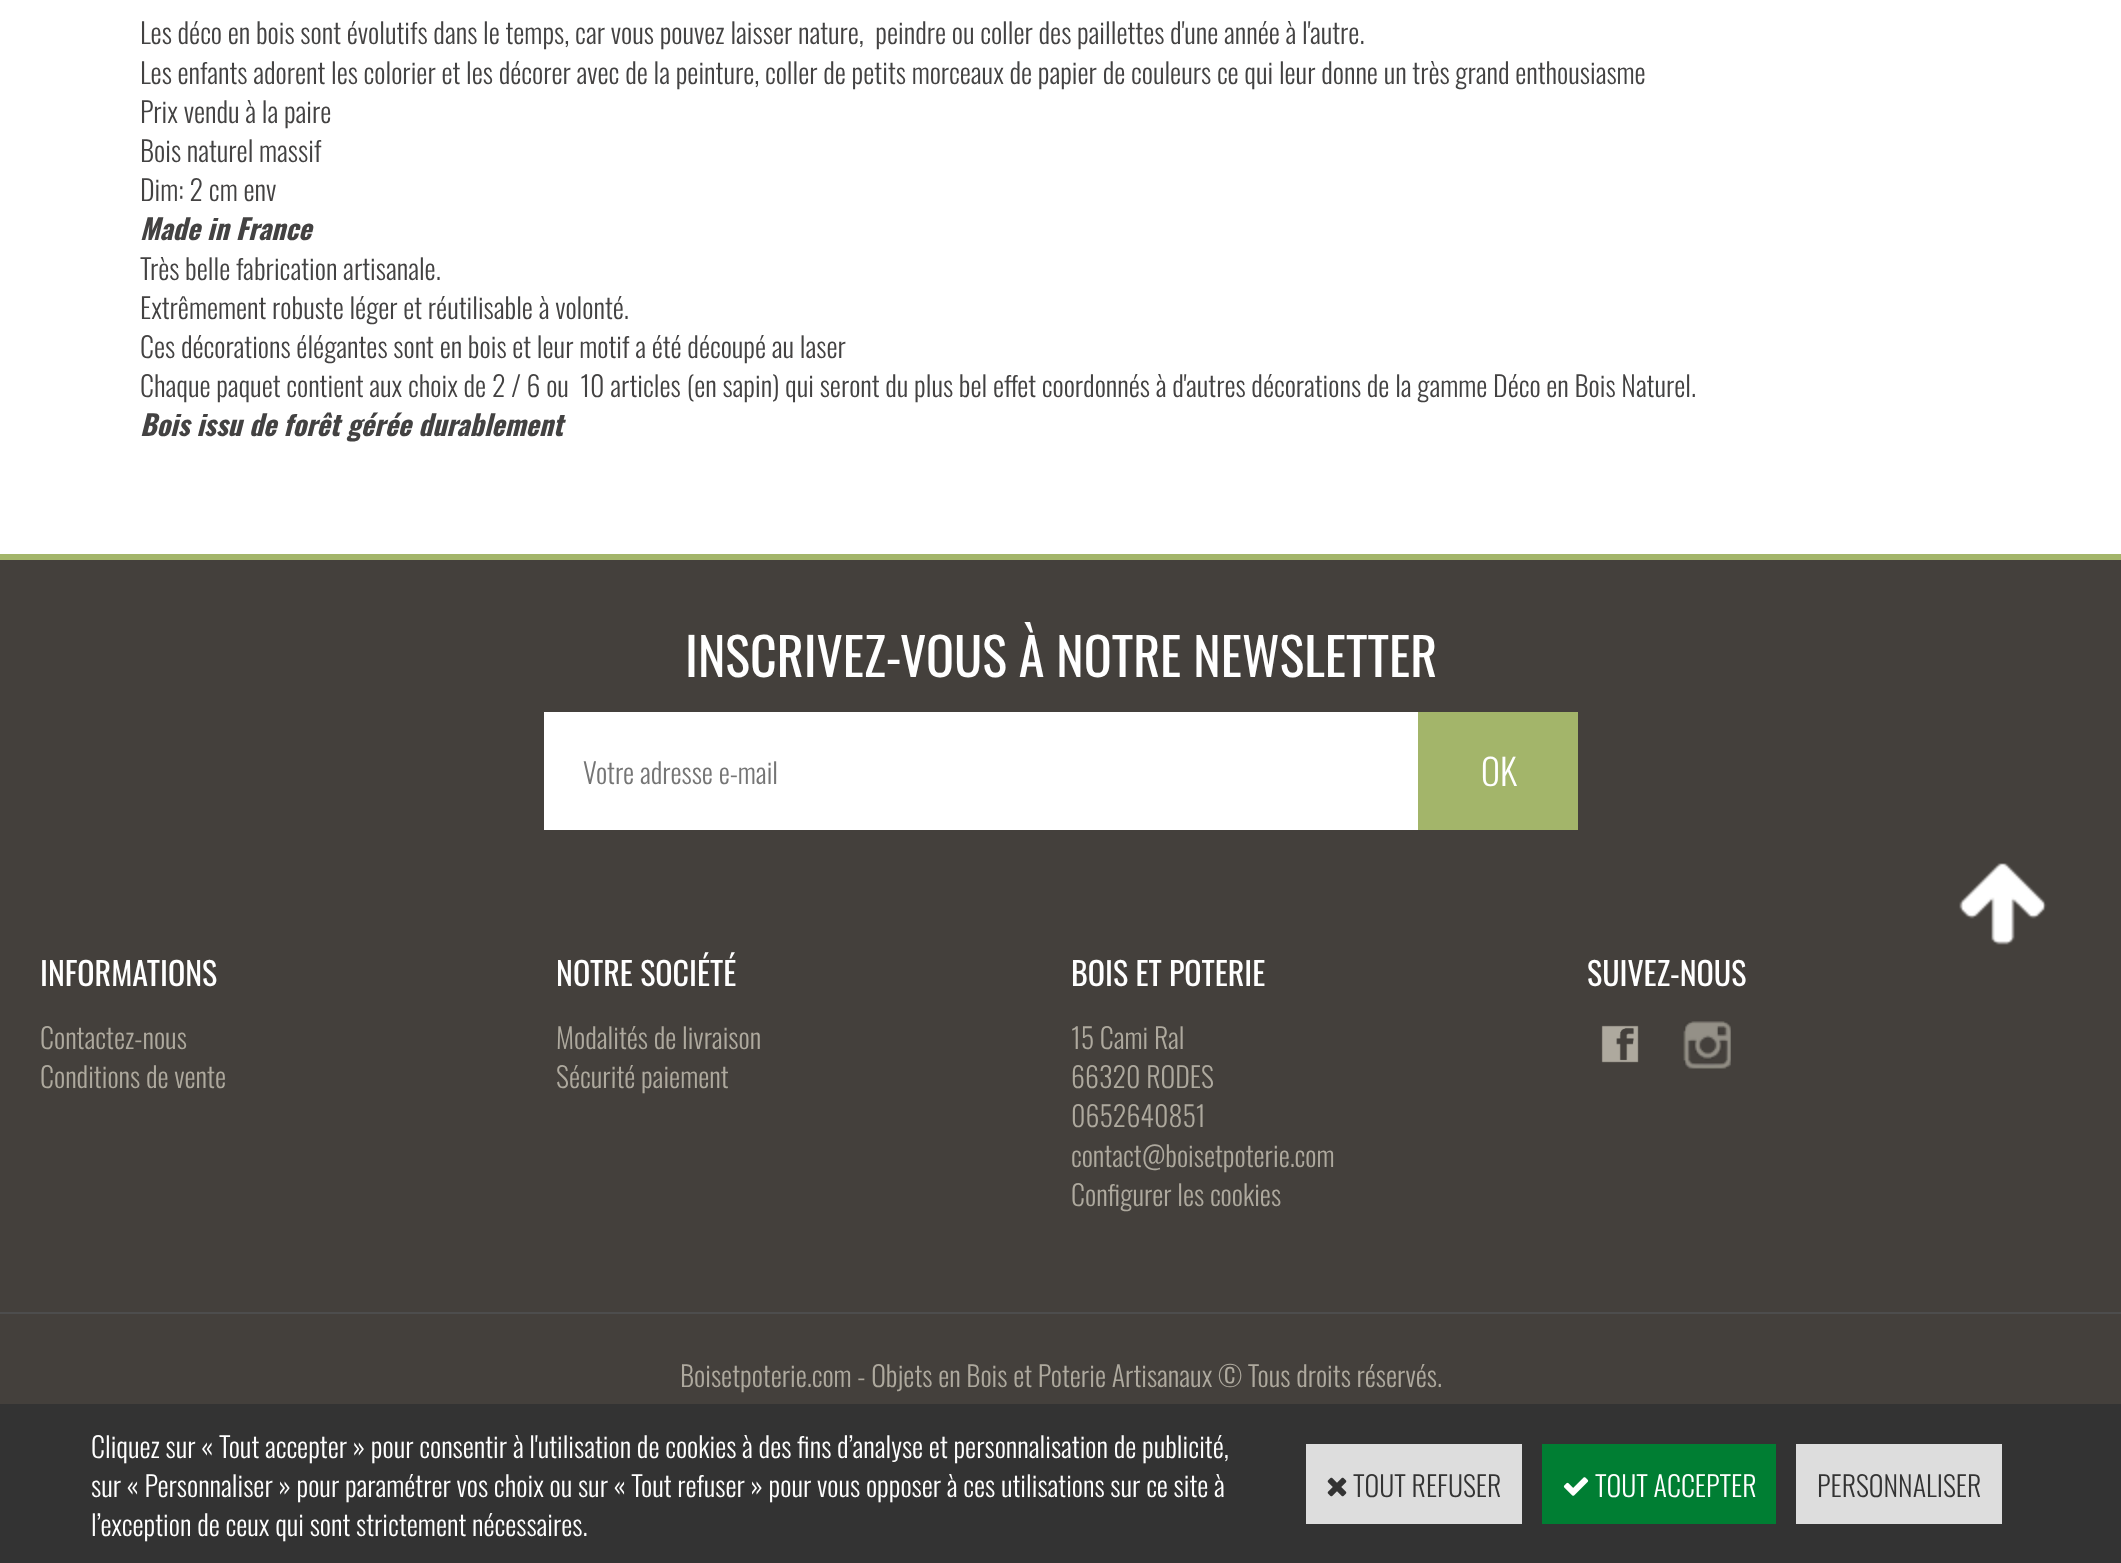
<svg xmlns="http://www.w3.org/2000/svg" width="2121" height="1563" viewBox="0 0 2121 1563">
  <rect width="100%" height="100%" fill="#ffffff"/>
  <text x="140" y="44" font-family="Oswald" font-size="28" font-weight="300" fill="#434242" xml:space="preserve">Les déco en bois sont évolutifs dans le temps, car vous pouvez laisser nature,  peindre ou coller des paillettes d'une année à l'autre.</text>
  <text x="140" y="84" font-family="Oswald" font-size="28" font-weight="300" fill="#434242">Les enfants adorent les colorier et les décorer avec de la peinture, coller de petits morceaux de papier de couleurs ce qui leur donne un très grand enthousiasme</text>
  <text x="140" y="123" font-family="Oswald" font-size="28" font-weight="300" fill="#434242">Prix vendu à la paire</text>
  <text x="140" y="162" font-family="Oswald" font-size="28" font-weight="300" fill="#434242">Bois naturel massif</text>
  <text x="140" y="201" font-family="Oswald" font-size="28" font-weight="300" fill="#434242">Dim: 2 cm env</text>
  <text x="140" y="240" font-family="Oswald" font-size="28" font-weight="bold" font-style="italic" fill="#434242">Made in France</text>
  <text x="140" y="280" font-family="Oswald" font-size="28" font-weight="300" fill="#434242">Très belle fabrication artisanale.</text>
  <text x="140" y="319" font-family="Oswald" font-size="28" font-weight="300" fill="#434242">Extrêmement robuste léger et réutilisable à volonté.</text>
  <text x="140" y="358" font-family="Oswald" font-size="28" font-weight="300" fill="#434242">Ces décorations élégantes sont en bois et leur motif a été découpé au laser</text>
  <text x="140" y="397" font-family="Oswald" font-size="28" font-weight="300" fill="#434242" xml:space="preserve">Chaque paquet contient aux choix de 2 / 6 ou  10 articles (en sapin) qui seront du plus bel effet coordonnés à d'autres décorations de la gamme Déco en Bois Naturel.</text>
  <text x="140" y="436" font-family="Oswald" font-size="28" font-weight="bold" font-style="italic" fill="#434242">Bois issu de forêt gérée durablement</text>
  <rect x="0" y="560" width="2121" height="844" fill="#44403c"/>
  <rect x="0" y="554" width="2121" height="6" fill="#a3b56a"/>
  <text x="685" y="677" font-family="Oswald" font-size="52" fill="#ffffff">INSCRIVEZ-VOUS À NOTRE NEWSLETTER</text>
  <rect x="544" y="712" width="874" height="118" fill="#ffffff"/>
  <text x="583" y="784" font-family="Oswald" font-size="28" font-weight="300" fill="#757575">Votre adresse e-mail</text>
  <rect x="1418" y="712" width="160" height="118" fill="#a3b56a"/>
  <text x="1481" y="786" font-family="Oswald" font-size="36" font-weight="300" fill="#ffffff">OK</text>
  <text x="40" y="986" font-family="Oswald" font-size="32" fill="#ffffff">INFORMATIONS</text>
  <text x="40" y="1049" font-family="Oswald" font-size="28" font-weight="300" fill="#aea99e">Contactez-nous</text>
  <text x="40" y="1088" font-family="Oswald" font-size="28" font-weight="300" fill="#aea99e">Conditions de vente</text>
  <text x="556" y="986" font-family="Oswald" font-size="32" fill="#ffffff">NOTRE SOCIÉTÉ</text>
  <text x="556" y="1049" font-family="Oswald" font-size="28" font-weight="300" fill="#aea99e">Modalités de livraison</text>
  <text x="556" y="1088" font-family="Oswald" font-size="28" font-weight="300" fill="#aea99e">Sécurité paiement</text>
  <text x="1071" y="986" font-family="Oswald" font-size="32" fill="#ffffff">BOIS ET POTERIE</text>
  <text x="1071" y="1049" font-family="Oswald" font-size="28" font-weight="300" fill="#aea99e">15 Cami Ral</text>
  <text x="1071" y="1088" font-family="Oswald" font-size="28" font-weight="300" fill="#aea99e">66320 RODES</text>
  <text x="1071" y="1127" font-family="Oswald" font-size="28" font-weight="300" fill="#aea99e">0652640851</text>
  <text x="1071" y="1167" font-family="Oswald" font-size="28" font-weight="300" fill="#aea99e">contact@boisetpoterie.com</text>
  <text x="1071" y="1206" font-family="Oswald" font-size="28" font-weight="300" fill="#aea99e">Configurer les cookies</text>
  <text x="1587" y="986" font-family="Oswald" font-size="32" fill="#ffffff">SUIVEZ-NOUS</text>
  <image x="1601" y="1025" width="38" height="38" href="img1.png"/>
  <image x="1683" y="1021" width="48" height="48" href="img2.png"/>
  <rect x="0" y="1312" width="2121" height="2" fill="#4d4d4d"/>
  <text x="680" y="1387" font-family="Oswald" font-size="28" font-weight="300" fill="#aea99e">Boisetpoterie.com - Objets en Bois et Poterie Artisanaux © Tous droits réservés.</text>
  <image x="1959" y="863" width="88" height="82" href="img3.png"/>
  <rect x="0" y="1404" width="2121" height="159" fill="#333333"/>
  <text x="91" y="1458" font-family="Oswald" font-size="28" font-weight="300" fill="#ffffff">Cliquez sur « Tout accepter » pour consentir à l'utilisation de cookies à des fins d’analyse et personnalisation de publicité,</text>
  <text x="91" y="1497" font-family="Oswald" font-size="28" font-weight="300" fill="#ffffff">sur « Personnaliser » pour paramétrer vos choix ou sur « Tout refuser » pour vous opposer à ces utilisations sur ce site à</text>
  <text x="91" y="1536" font-family="Oswald" font-size="28" font-weight="300" fill="#ffffff">l’exception de ceux qui sont strictement nécessaires.</text>
  <rect x="1306" y="1444" width="216" height="80" fill="#dddddd"/>
  <image x="1327" y="1477" width="20" height="20" href="img4.png"/>
  <text x="1353" y="1497" font-family="Oswald" font-size="28" font-weight="300" fill="#333333">TOUT REFUSER</text>
  <rect x="1542" y="1444" width="234" height="80" fill="#007e33"/>
  <image x="1563" y="1477" width="26" height="19" href="img5.png"/>
  <text x="1595" y="1497" font-family="Oswald" font-size="28" font-weight="300" fill="#ffffff">TOUT ACCEPTER</text>
  <rect x="1796" y="1444" width="206" height="80" fill="#dddddd"/>
  <text x="1817" y="1497" font-family="Oswald" font-size="28" font-weight="300" fill="#333333">PERSONNALISER</text>
</svg>
